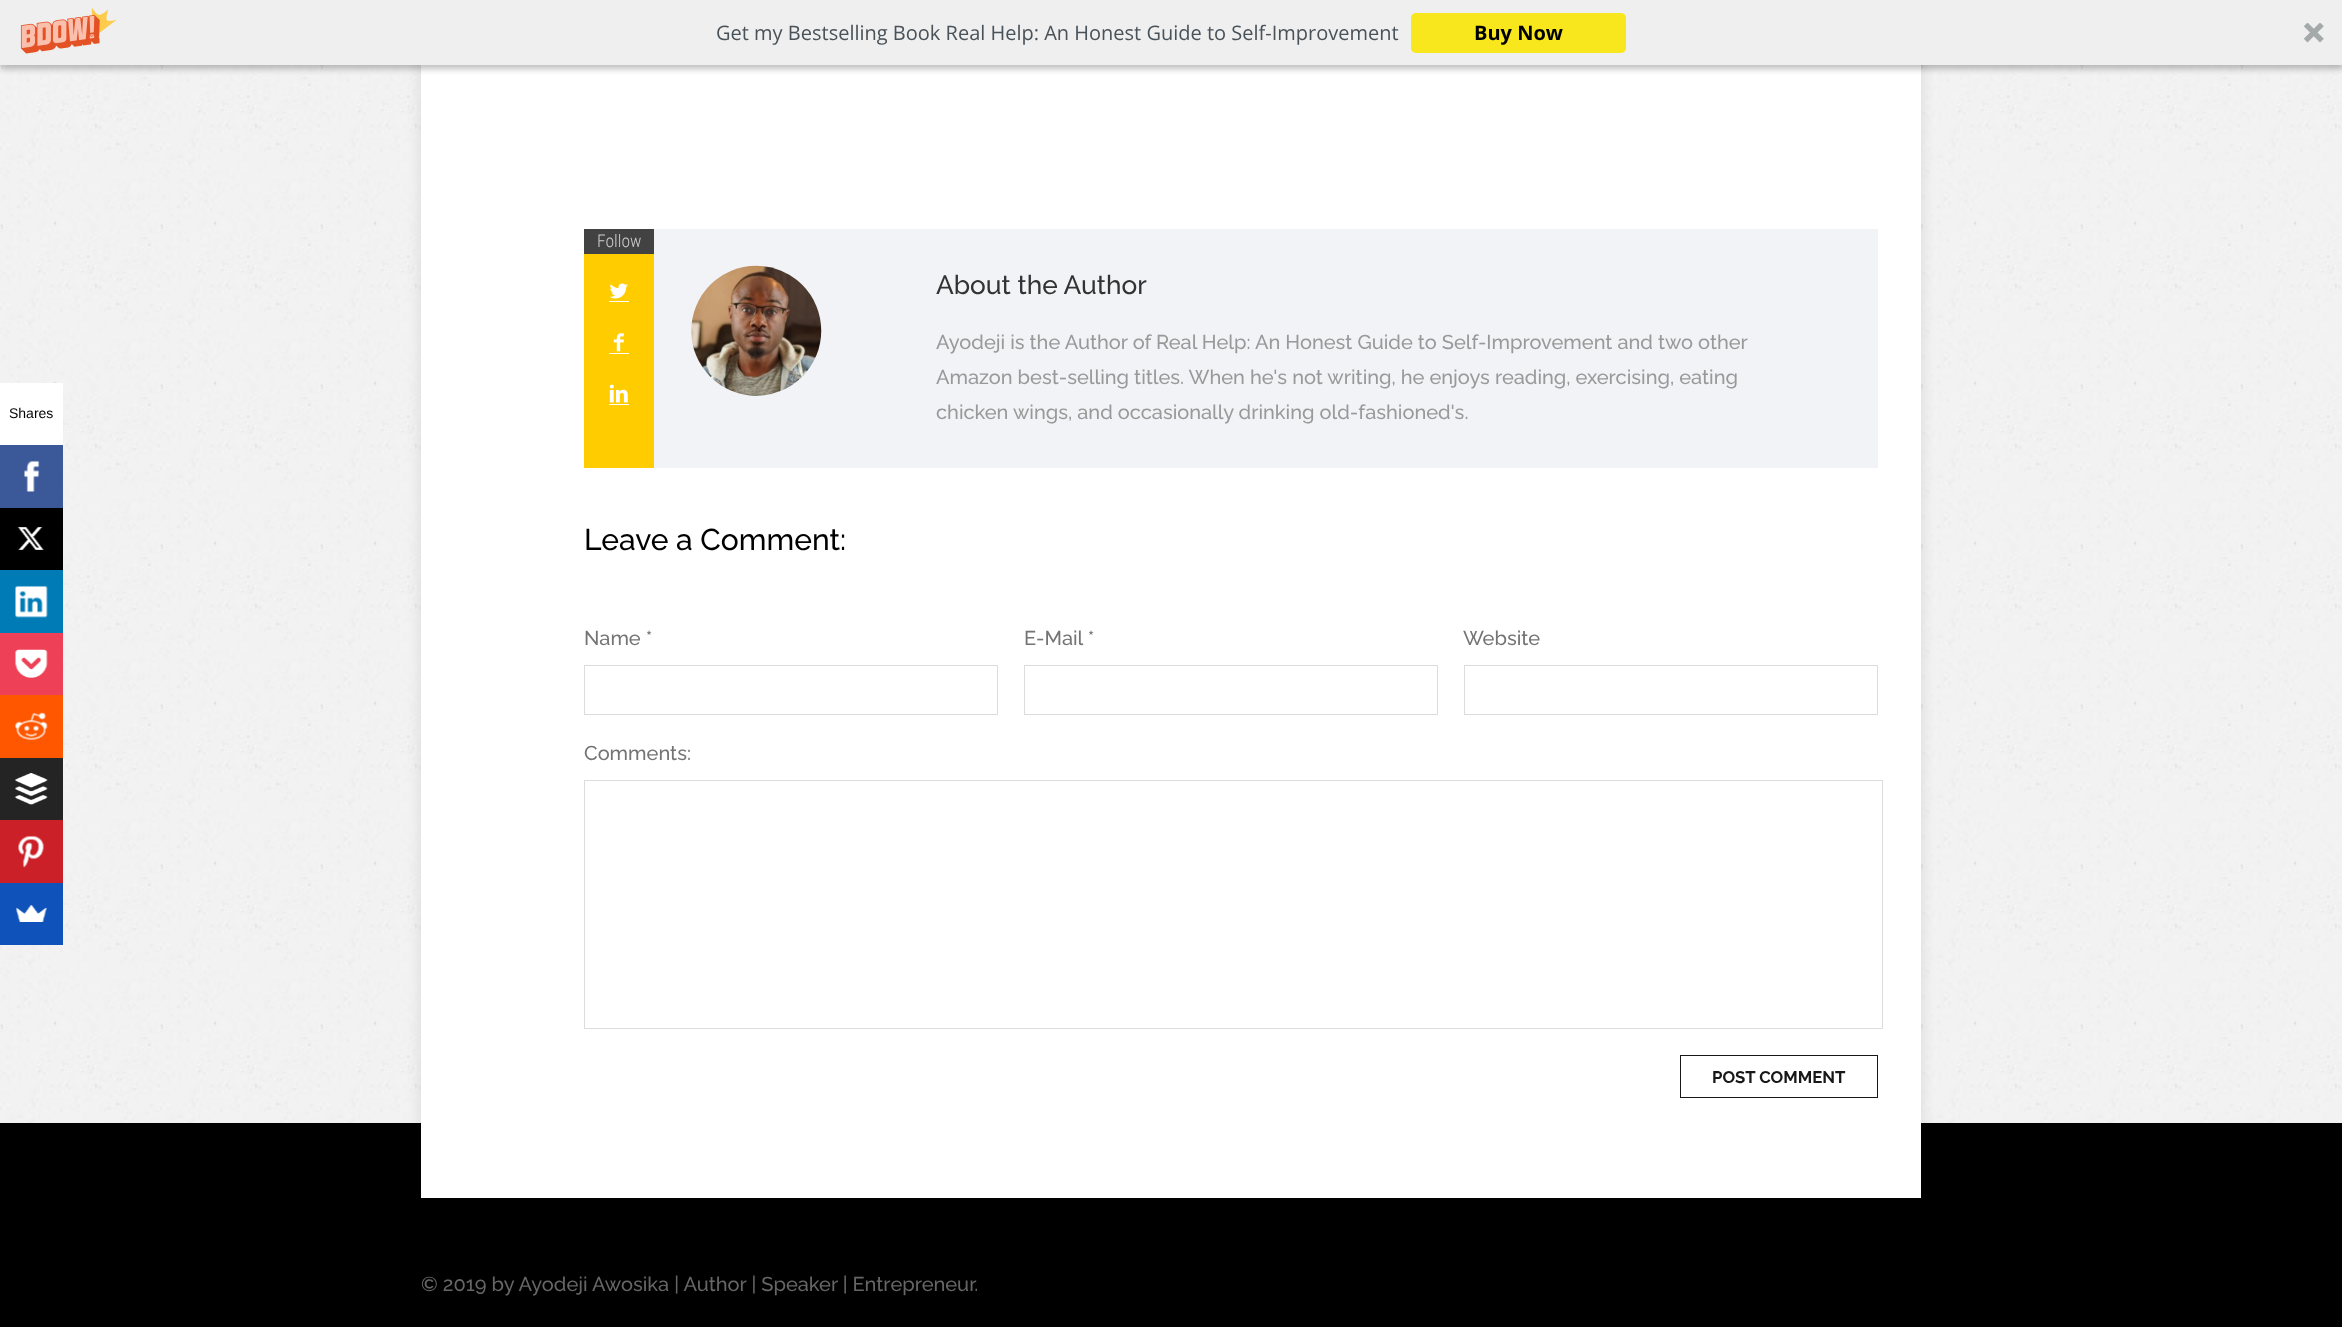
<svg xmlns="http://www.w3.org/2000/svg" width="2342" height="1327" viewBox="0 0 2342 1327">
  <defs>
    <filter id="blur1" x="-50%" y="-200%" width="200%" height="500%"><feGaussianBlur stdDeviation="7"/></filter>
    <filter id="blur2" x="-50%" y="-200%" width="200%" height="500%"><feGaussianBlur stdDeviation="3"/></filter>
  </defs>
  <rect width="100%" height="100%" fill="#ffffff"/>
  <image x="0" y="65" width="2342" height="1058" href="img1.png"/>
  <rect x="0" y="1123" width="2342" height="204" fill="#000000"/>
  <rect x="421" y="-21" width="1500" height="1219" fill="#323232" fill-opacity="0.11" filter="url(#blur1)"/>
  <rect x="421" y="65" width="1500" height="1133" fill="#ffffff"/>
  <rect x="1" y="4" width="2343" height="65" fill="#000000" fill-opacity="0.25" filter="url(#blur2)"/>
  <rect x="0" y="0" width="2342" height="65" fill="#efefef"/>
  <image x="20" y="7" width="97" height="47" href="img2.png"/>
  <text x="716" y="40" font-family="Open Sans" font-size="20" fill="#495259">Get my Bestselling Book Real Help: An Honest Guide to Self-Improvement</text>
  <rect x="1411" y="13" width="215" height="40" rx="5" fill="#f8e71c"/>
  <text x="1474" y="40" font-family="Open Sans" font-size="20" font-weight="bold" fill="#000000">Buy Now</text>
  <image x="2304" y="23" width="20" height="20" href="img3.png"/>
  <rect x="0" y="383" width="63" height="62" fill="#ffffff"/>
  <text x="9" y="418" font-family="Liberation Sans" font-size="14" fill="#000000">Shares</text>
  <rect x="0" y="445" width="63" height="63" fill="#3b5998"/>
  <image x="24" y="460" width="16" height="32" href="img4.png"/>
  <rect x="0" y="508" width="63" height="62" fill="#000000"/>
  <image x="17" y="527" width="27" height="23" href="img5.png"/>
  <rect x="0" y="570" width="63" height="63" fill="#007bb6"/>
  <image x="15" y="585" width="33" height="33" href="img6.png"/>
  <rect x="0" y="633" width="63" height="62" fill="#ee4056"/>
  <image x="15" y="649" width="33" height="29" href="img7.png"/>
  <rect x="0" y="695" width="63" height="63" fill="#ff5700"/>
  <image x="15" y="712" width="33" height="28" href="img8.png"/>
  <rect x="0" y="758" width="63" height="62" fill="#242424"/>
  <image x="15" y="773" width="33" height="32" href="img9.png"/>
  <rect x="0" y="820" width="63" height="63" fill="#cb2027"/>
  <image x="18" y="835" width="26" height="33" href="img10.png"/>
  <rect x="0" y="883" width="63" height="62" fill="#0f52ba"/>
  <image x="15" y="905" width="32" height="17" href="img11.png"/>
  <rect x="654" y="229" width="1224" height="239" fill="#f2f3f7"/>
  <rect x="584" y="254" width="70" height="214" fill="#ffcc00"/>
  <rect x="584" y="229" width="70" height="25" fill="#424242"/>
  <text x="597" y="247" font-family="Roboto Condensed" font-size="17.5" font-weight="300" fill="#cccccc">Follow</text>
  <image x="609" y="283" width="19" height="16" href="img12.png"/>
  <rect x="609" y="301" width="20" height="1" fill="#ffffff"/>
  <image x="613" y="333" width="11" height="19" href="img13.png"/>
  <rect x="609" y="353" width="20" height="1" fill="#ffffff"/>
  <image x="609" y="384" width="19" height="19" href="img14.png"/>
  <rect x="609" y="404" width="20" height="1" fill="#ffffff"/>
  <image x="691" y="265" width="131" height="131" href="img15.png"/>
  <text x="936" y="294" font-family="Raleway" font-size="26.25" font-weight="500" fill="#333333">About the Author</text>
  <text x="936" y="349" font-family="Raleway" font-size="20" font-weight="500" fill="#999999">Ayodeji is the Author of Real Help: An Honest Guide to Self-Improvement and two other</text>
  <text x="936" y="384" font-family="Raleway" font-size="20" font-weight="500" fill="#999999">Amazon best-selling titles. When he's not writing, he enjoys reading, exercising, eating</text>
  <text x="936" y="419" font-family="Raleway" font-size="20" font-weight="500" fill="#999999">chicken wings, and occasionally drinking old-fashioned's.</text>
  <text x="584" y="550" font-family="Raleway" font-size="30" font-weight="500" fill="#000000">Leave a Comment:</text>
  <text x="584" y="645" font-family="Raleway" font-size="20" font-weight="500" fill="#747474">Name *</text>
  <text x="1024" y="645" font-family="Raleway" font-size="20" font-weight="500" fill="#747474">E-Mail *</text>
  <text x="1463" y="645" font-family="Raleway" font-size="20" font-weight="500" fill="#747474">Website</text>
  <rect x="584.5" y="665.5" width="413" height="49" fill="none" stroke="#dcdcdc"/>
  <rect x="1024.5" y="665.5" width="413" height="49" fill="none" stroke="#dcdcdc"/>
  <rect x="1464.5" y="665.5" width="413" height="49" fill="none" stroke="#dcdcdc"/>
  <text x="584" y="760" font-family="Raleway" font-size="20" font-weight="500" fill="#747474">Comments:</text>
  <rect x="584.5" y="780.5" width="1298" height="248" fill="none" stroke="#dcdcdc"/>
  <rect x="1680.5" y="1055.5" width="197" height="42" fill="none" stroke="#181818"/>
  <text x="1712" y="1083" font-family="Raleway" font-size="16.75" font-weight="bold" fill="#181818">POST COMMENT</text>
  <text x="421" y="1291" font-family="Raleway" font-size="20" font-weight="500" fill="#666666">© 2019 by Ayodeji Awosika | Author | Speaker | Entrepreneur.</text>
</svg>
